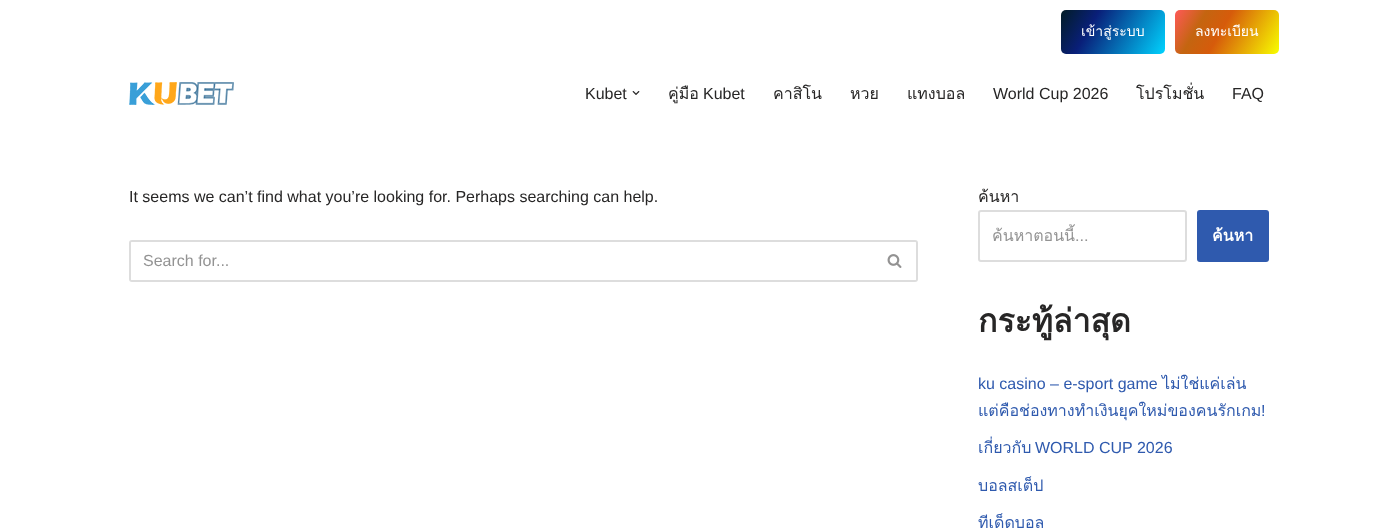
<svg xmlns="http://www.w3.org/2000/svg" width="1397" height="528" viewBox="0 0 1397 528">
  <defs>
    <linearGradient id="g1" gradientUnits="userSpaceOnUse" x1="1064" y1="4" x2="1162" y2="60"><stop offset="0" stop-color="#021d24"/><stop offset="0.3" stop-color="#091f79"/><stop offset="0.45" stop-color="#074696"/><stop offset="1" stop-color="#00d4ff"/></linearGradient>
    <linearGradient id="g2" gradientUnits="userSpaceOnUse" x1="1178" y1="4" x2="1276" y2="60"><stop offset="0" stop-color="#ff5959"/><stop offset="0.25" stop-color="#c46510"/><stop offset="0.45" stop-color="#d65b0b"/><stop offset="1" stop-color="#f8ff00"/></linearGradient>
    <clipPath id="clip1"><rect x="992" y="223" width="166" height="25"/></clipPath>
  </defs>
  <rect width="100%" height="100%" fill="#ffffff"/>
  <rect x="1061" y="10" width="104" height="44" rx="5" fill="url(#g1)"/>
  <text x="1081" y="36" font-family="Loma" font-size="14" fill="#ffffff">เข้าสู่ระบบ</text>
  <rect x="1175" y="10" width="104" height="44" rx="5" fill="url(#g2)"/>
  <text x="1195" y="36" font-family="Loma" font-size="14" fill="#ffffff">ลงทะเบียน</text>
  <image x="129" y="82" width="105" height="23" href="img1.png"/>
  <text x="585" y="99" font-family="Liberation Sans" font-size="16" fill="#272626">Kubet</text>
  <image x="632" y="91" width="8" height="4" href="img2.png"/>
  <text x="668" y="99" font-family="Loma" font-size="16" fill="#272626">คู่มือ</text>
  <text x="703" y="99" font-family="Liberation Sans" font-size="16" fill="#272626">Kubet</text>
  <text x="773" y="99" font-family="Loma" font-size="16" fill="#272626">คาสิโน</text>
  <text x="850" y="99" font-family="Loma" font-size="16" fill="#272626">หวย</text>
  <text x="907" y="99" font-family="Loma" font-size="16" fill="#272626">แทงบอล</text>
  <text x="993" y="99" font-family="Liberation Sans" font-size="16" fill="#272626">World Cup 2026</text>
  <text x="1136" y="99" font-family="Loma" font-size="16" fill="#272626">โปรโมชั่น</text>
  <text x="1232" y="99" font-family="Liberation Sans" font-size="16" fill="#272626">FAQ</text>
  <text x="129" y="202" font-family="Liberation Sans" font-size="16" fill="#272626">It seems we can’t find what you’re looking for. Perhaps searching can help.</text>
  <path d="M132 240H873V282H132C130 282 129 281 129 279V243C129 241 130 240 132 240ZM132 242H873V280H132C131 280 131 280 131 279V243C131 242 131 242 132 242Z" fill="#dddddd" fill-rule="evenodd"/>
  <text x="143" y="266" font-family="Liberation Sans" font-size="16" fill="#939393">Search for...</text>
  <path d="M873 240H915C917 240 918 241 918 243V279C918 281 917 282 915 282H873ZM873 242H915C916 242 916 242 916 243V279C916 280 916 280 915 280H873Z" fill="#dddddd" fill-rule="evenodd"/>
  <image x="887" y="254" width="15" height="14" href="img3.png"/>
  <text x="978" y="202" font-family="Loma" font-size="16" fill="#272626">ค้นหา</text>
  <rect x="979" y="211" width="207" height="50" rx="2" fill="none" stroke="#dddddd" stroke-width="2"/>
  <g clip-path="url(#clip1)">
    <text x="992" y="241" font-family="Loma" font-size="16" fill="#939393">ค้นหาตอนนี้...</text>
  </g>
  <rect x="1197" y="210" width="72" height="52" rx="3" fill="#2f5aae"/>
  <text x="1212" y="241" font-family="Loma" font-size="16" font-weight="bold" fill="#ffffff">ค้นหา</text>
  <text x="978" y="332" font-family="Loma" font-size="32" font-weight="bold" fill="#272626">กระทู้ล่าสุด</text>
  <text x="978" y="389" font-family="Liberation Sans" font-size="16" fill="#2f5aae">ku casino – e-sport game</text>
  <text x="1162" y="389" font-family="Loma" font-size="16" fill="#2f5aae">ไม่ใช่แค่เล่น</text>
  <text x="978" y="416" font-family="Loma" font-size="16" fill="#2f5aae">แต่คือช่องทางทำเงินยุคใหม่ของคนรักเกม</text>
  <text x="1261" y="416" font-family="Liberation Sans" font-size="16" fill="#2f5aae">!</text>
  <text x="978" y="453" font-family="Loma" font-size="16" fill="#2f5aae">เกี่ยวกับ</text>
  <text x="1035" y="453" font-family="Liberation Sans" font-size="16" fill="#2f5aae">WORLD CUP 2026</text>
  <text x="978" y="491" font-family="Loma" font-size="16" fill="#2f5aae">บอลสเต็ป</text>
  <text x="978" y="528" font-family="Loma" font-size="16" fill="#2f5aae">ทีเด็ดบอล</text>
</svg>
